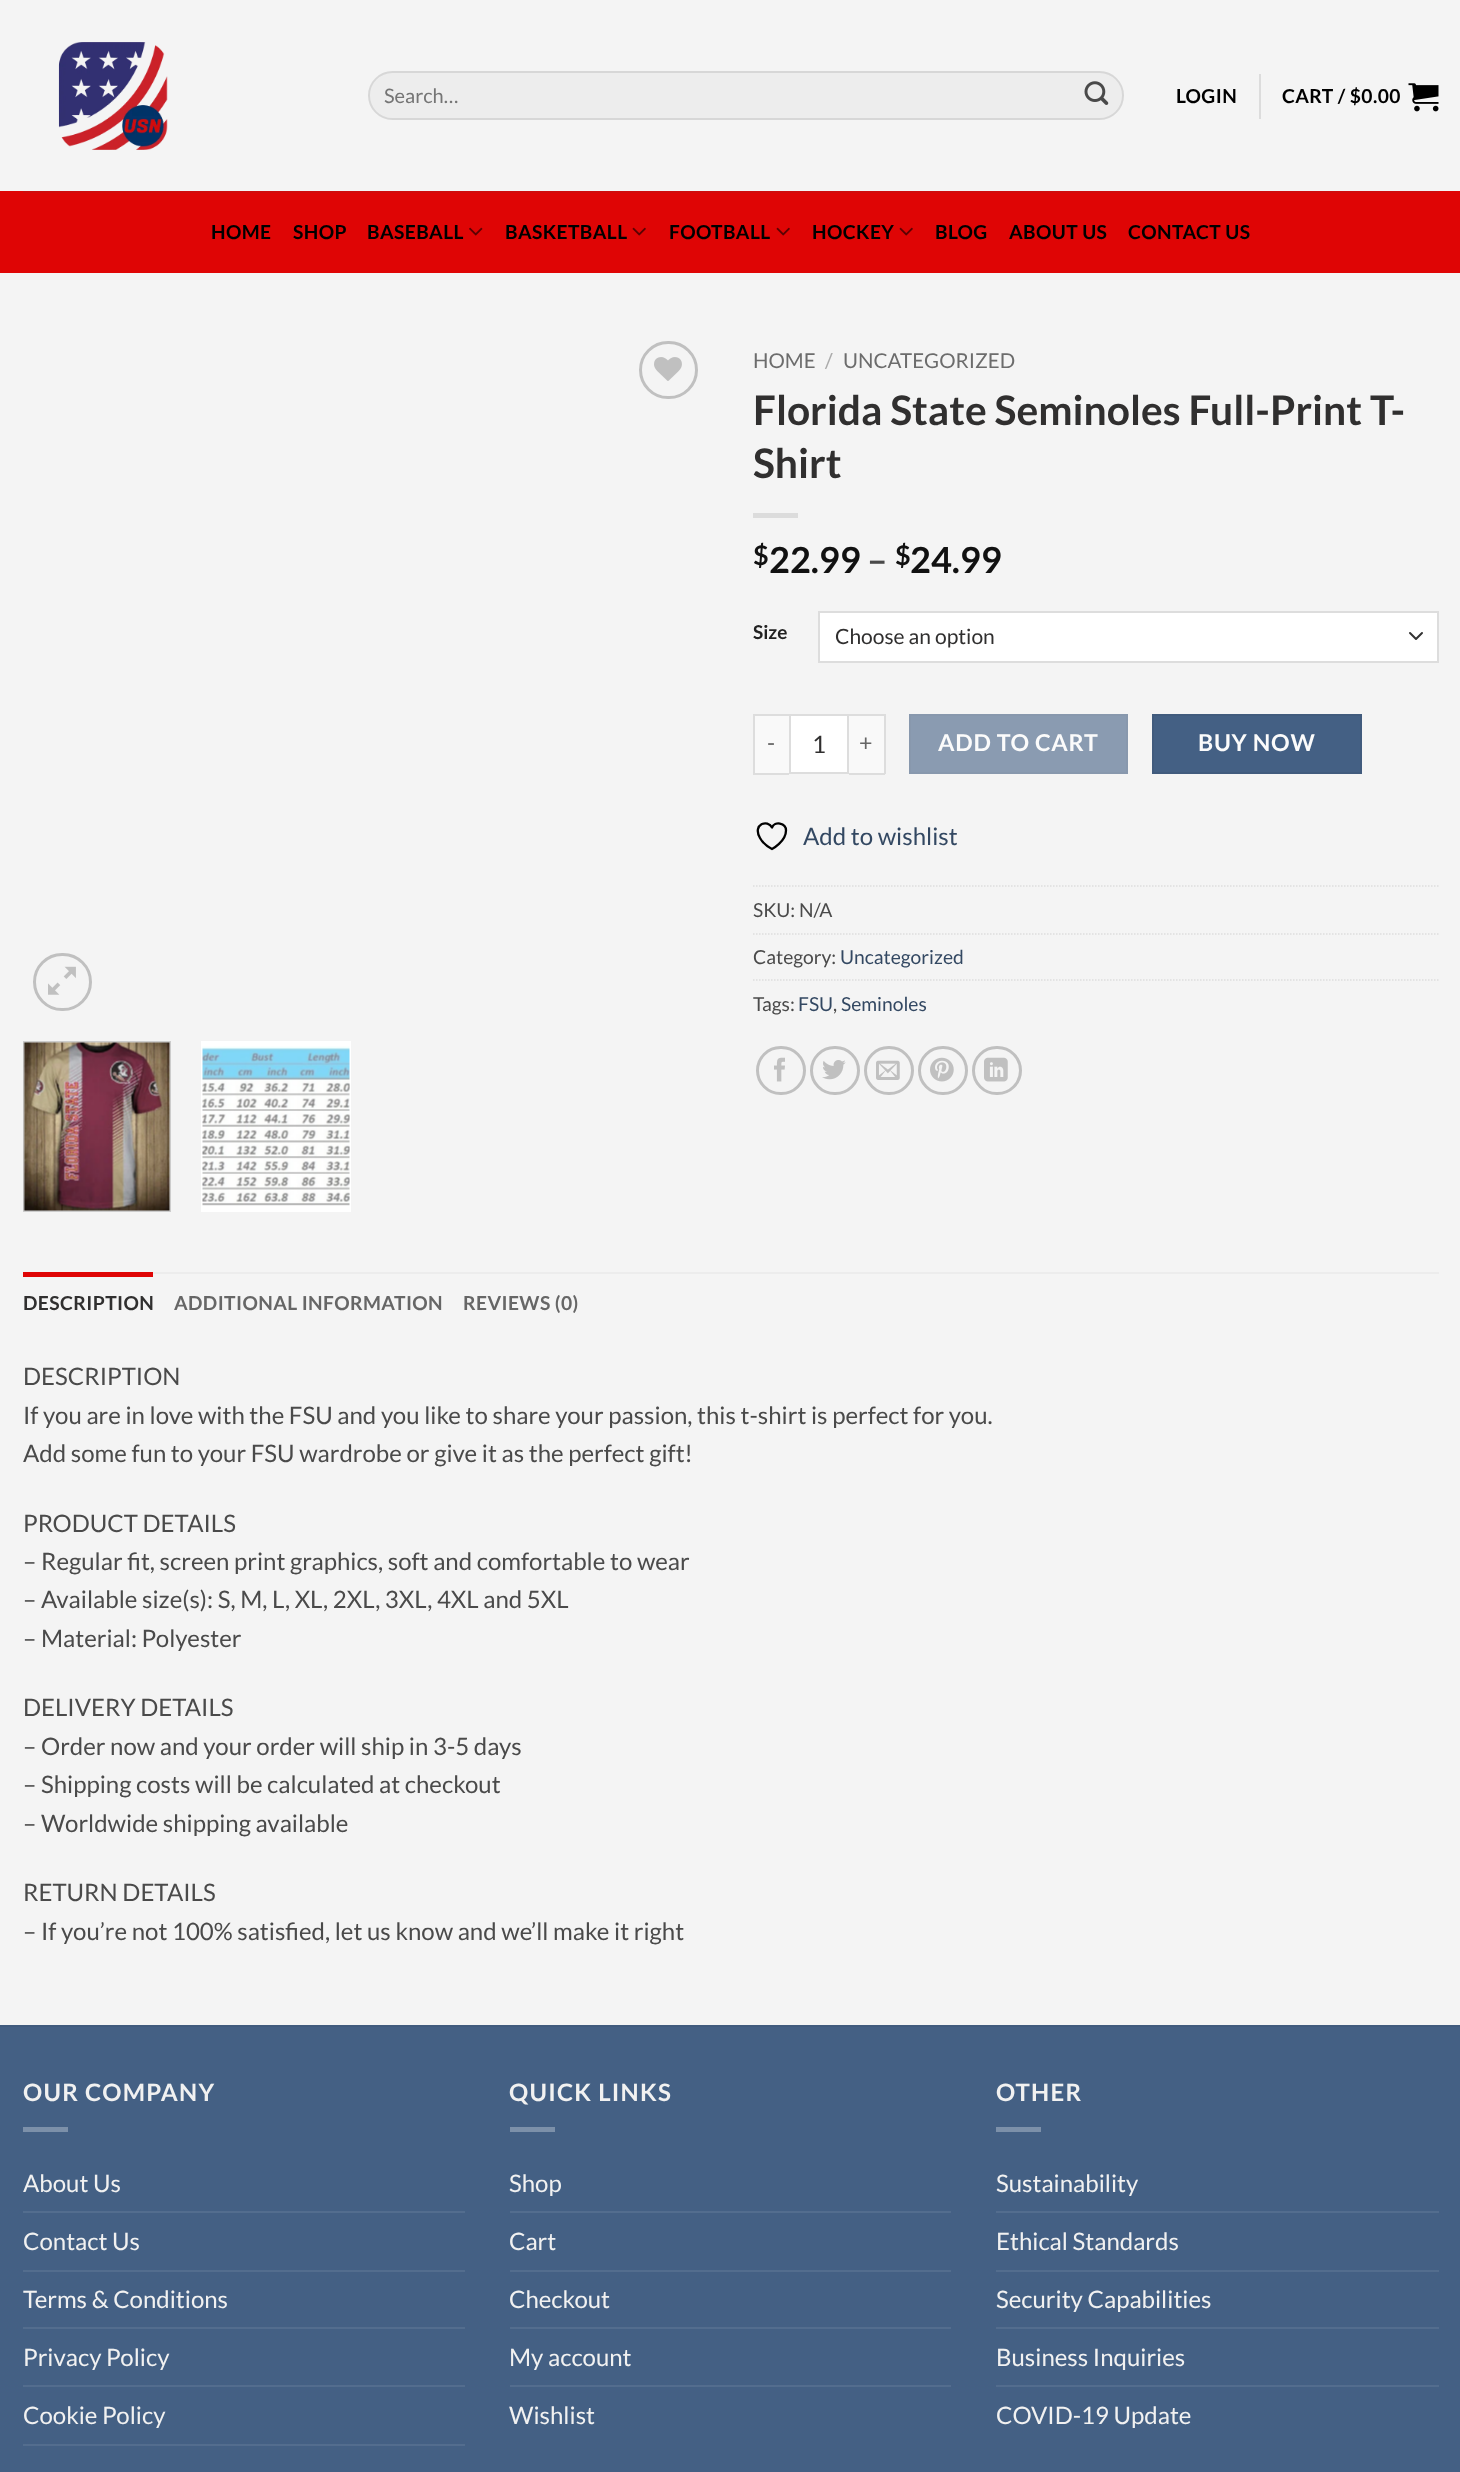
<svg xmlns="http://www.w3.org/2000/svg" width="1460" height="2472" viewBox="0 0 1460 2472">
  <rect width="100%" height="100%" fill="#f4f4f4"/>
  <image x="58" y="42" width="110" height="108" href="img1.png"/>
  <rect x="368" y="71" width="756" height="49" rx="24.5" fill="#ededed"/>
  <rect x="369" y="72" width="754" height="47" rx="23.5" fill="none" stroke="#000000" stroke-opacity="0.09" stroke-width="2"/>
  <text x="384" y="103" font-family="Lato" font-size="20" fill="#757575">Search…</text>
  <image x="1084" y="81" width="25" height="24" href="img2.png"/>
  <text x="1176" y="103" font-family="Lato" font-size="19.25" font-weight="bold" letter-spacing="0.4" fill="#000000">LOGIN</text>
  <rect x="1259" y="74" width="2" height="45" fill="#dcdcdc"/>
  <text x="1282" y="103" font-family="Lato" font-size="19.25" font-weight="bold" letter-spacing="0.4" fill="#000000">CART / $0.00</text>
  <image x="1408" y="83" width="31" height="29" href="img3.png"/>
  <rect x="0" y="191" width="1460" height="82" fill="#df0505"/>
  <rect x="23" y="191" width="1416" height="2" fill="#d00c0c"/>
  <text x="211" y="239" font-family="Lato" font-size="19.25" font-weight="bold" letter-spacing="0.4" fill="#000000">HOME</text>
  <text x="293" y="239" font-family="Lato" font-size="19.25" font-weight="bold" letter-spacing="0.4" fill="#000000">SHOP</text>
  <text x="367" y="239" font-family="Lato" font-size="19.25" font-weight="bold" letter-spacing="0.4" fill="#000000">BASEBALL</text>
  <image x="469" y="227" width="14" height="9" href="img4.png"/>
  <text x="505" y="239" font-family="Lato" font-size="19.25" font-weight="bold" letter-spacing="0.4" fill="#000000">BASKETBALL</text>
  <image x="632" y="227" width="14" height="9" href="img5.png"/>
  <text x="669" y="239" font-family="Lato" font-size="19.25" font-weight="bold" letter-spacing="0.4" fill="#000000">FOOTBALL</text>
  <image x="776" y="227" width="14" height="9" href="img5.png"/>
  <text x="812" y="239" font-family="Lato" font-size="19.25" font-weight="bold" letter-spacing="0.4" fill="#000000">HOCKEY</text>
  <image x="899" y="227" width="14" height="9" href="img5.png"/>
  <text x="935" y="239" font-family="Lato" font-size="19.25" font-weight="bold" letter-spacing="0.4" fill="#000000">BLOG</text>
  <text x="1009" y="239" font-family="Lato" font-size="19.25" font-weight="bold" letter-spacing="0.4" fill="#000000">ABOUT US</text>
  <text x="1128" y="239" font-family="Lato" font-size="19.25" font-weight="bold" letter-spacing="0.4" fill="#000000">CONTACT US</text>
  <rect x="640.5" y="342.5" width="56" height="55" rx="27.5" fill="none" stroke="#c0c0c0" stroke-width="3"/>
  <image x="654" y="357" width="28" height="24" href="img6.png"/>
  <rect x="34.5" y="954.5" width="56" height="55" rx="27.5" fill="none" stroke="#c0c0c0" stroke-width="3"/>
  <image x="48" y="966" width="28" height="29" href="img7.png"/>
  <rect x="24" y="1042" width="146" height="169" fill="none" stroke="#cccccc" stroke-width="2"/>
  <image x="23" y="1042" width="147" height="169" href="img8.png"/>
  <rect x="201" y="1041" width="150" height="171" fill="#ffffff"/>
  <image x="202" y="1046" width="148" height="160" href="img9.png"/>
  <text x="753" y="368" font-family="Lato" font-size="20.5" fill="#6c6c6c">HOME</text>
  <text x="825" y="368" font-family="Lato" font-size="20.5" fill="#aaaaaa">/</text>
  <text x="843" y="368" font-family="Lato" font-size="20.5" fill="#6c6c6c">UNCATEGORIZED</text>
  <text x="753" y="425" font-family="Lato" font-size="40.75" font-weight="bold" fill="#302f2f">Florida State Seminoles Full-Print T-</text>
  <text x="753" y="478" font-family="Lato" font-size="40.75" font-weight="bold" fill="#302f2f">Shirt</text>
  <rect x="753" y="513" width="45" height="5" fill="#dcdcdc"/>
  <text x="753" y="565" font-family="Lato" font-size="27" font-weight="bold" fill="#111111">$</text>
  <text x="769" y="573" font-family="Lato" font-size="36" font-weight="bold" fill="#111111">22.99</text>
  <text x="867" y="573" font-family="Lato" font-size="36" font-weight="bold" fill="#4a4a4a">–</text>
  <text x="895" y="565" font-family="Lato" font-size="27" font-weight="bold" fill="#111111">$</text>
  <text x="910" y="573" font-family="Lato" font-size="36" font-weight="bold" fill="#111111">24.99</text>
  <text x="753" y="639" font-family="Lato" font-size="19" font-weight="bold" fill="#222222">Size</text>
  <rect x="820" y="613" width="617" height="48" fill="#ffffff"/>
  <path d="M1410 633L1416 639L1422 633" fill="none" stroke="#333333" stroke-width="2" stroke-linecap="round" stroke-linejoin="round"/>
  <rect x="819" y="612" width="619" height="50" fill="none" stroke="#dddddd" stroke-width="2"/>
  <text x="835" y="644" font-family="Lato" font-size="21" fill="#302f2f">Choose an option</text>
  <rect x="755" y="716" width="34" height="57" fill="#f9f9f9"/>
  <rect x="753" y="714" width="36" height="2" fill="#dddddd"/>
  <rect x="753" y="773" width="36" height="2" fill="#dddddd"/>
  <rect x="753" y="714" width="2" height="60" fill="#dddddd"/>
  <text x="767" y="751" font-family="Lato" font-size="23.25" letter-spacing="0.75" fill="#666666">-</text>
  <rect x="790" y="715" width="58" height="58" fill="#ffffff" stroke="#dddddd" stroke-width="2"/>
  <text x="812" y="753" font-family="Lato" font-size="24" fill="#302f2f">1</text>
  <rect x="849" y="716" width="35" height="57" fill="#f9f9f9"/>
  <rect x="849" y="714" width="36" height="2" fill="#dddddd"/>
  <rect x="884" y="714" width="2" height="60" fill="#dddddd"/>
  <rect x="849" y="773" width="36" height="2" fill="#dddddd"/>
  <text x="859" y="751" font-family="Lato" font-size="23.25" letter-spacing="0.75" fill="#666666">+</text>
  <rect x="910" y="715" width="217" height="58" fill="#8a9bb1" stroke="#8898ad" stroke-width="2"/>
  <text x="938" y="751" font-family="Lato" font-size="23.25" font-weight="bold" letter-spacing="0.75" fill="#fbfbfb">ADD TO CART</text>
  <rect x="1153" y="715" width="208" height="58" fill="#446084" stroke="#415b7d" stroke-width="2"/>
  <text x="1198" y="751" font-family="Lato" font-size="23.25" font-weight="bold" letter-spacing="0.75" fill="#fbfbfb">BUY NOW</text>
  <text x="803" y="845" font-family="Lato" font-size="24" fill="#334862">Add to wishlist</text>
  <path d="M786 830.5C786 822.5 774.5 821 772 827.5C768 819 752 824 760 838C762.5 842.5 767 846.5 772 849C772 849 786 841.5 786 830.5Z" fill="none" stroke="#000000" stroke-width="2.3" stroke-linecap="round" stroke-linejoin="round"/>
  <path d="M753 886H1438.5" fill="none" stroke="#dddddd" stroke-width="1.5" stroke-dasharray="1.5 1.5"/>
  <text x="753" y="917" font-family="Lato" font-size="19.25" fill="#4a4a4a">SKU: N/A</text>
  <path d="M753 934H1438.5" fill="none" stroke="#dddddd" stroke-width="1.5" stroke-dasharray="1.5 1.5"/>
  <text x="753" y="964" font-family="Lato" font-size="19.25" fill="#4a4a4a">Category:</text>
  <text x="840" y="964" font-family="Lato" font-size="19.25" fill="#334862">Uncategorized</text>
  <path d="M753 980H1438.5" fill="none" stroke="#dddddd" stroke-width="1.5" stroke-dasharray="1.5 1.5"/>
  <text x="753" y="1011" font-family="Lato" font-size="19.25" fill="#4a4a4a">Tags:</text>
  <text x="798" y="1011" font-family="Lato" font-size="19.25" fill="#334862">FSU</text>
  <text x="833" y="1011" font-family="Lato" font-size="19.25" fill="#4a4a4a">,</text>
  <text x="841" y="1011" font-family="Lato" font-size="19.25" fill="#334862">Seminoles</text>
  <rect x="757.5" y="1047.5" width="47" height="46" rx="23" fill="none" stroke="#c0c0c0" stroke-width="3"/>
  <image x="774" y="1057" width="11" height="25" href="img10.png"/>
  <rect x="811.5" y="1047.5" width="47" height="46" rx="23" fill="none" stroke="#c0c0c0" stroke-width="3"/>
  <image x="822" y="1060" width="24" height="20" href="img11.png"/>
  <rect x="865.5" y="1047.5" width="47" height="46" rx="23" fill="none" stroke="#c0c0c0" stroke-width="3"/>
  <image x="876" y="1060" width="24" height="20" href="img12.png"/>
  <rect x="919.5" y="1047.5" width="47" height="46" rx="23" fill="none" stroke="#c0c0c0" stroke-width="3"/>
  <image x="930" y="1057" width="24" height="25" href="img13.png"/>
  <rect x="973.5" y="1047.5" width="47" height="46" rx="23" fill="none" stroke="#c0c0c0" stroke-width="3"/>
  <image x="984" y="1057" width="24" height="25" href="img14.png"/>
  <rect x="153" y="1272" width="1286" height="2" fill="#ececec"/>
  <rect x="23" y="1272" width="130" height="5" fill="#df0505"/>
  <text x="23" y="1310" font-family="Lato" font-size="19.25" font-weight="bold" letter-spacing="0.4" fill="#302f2f">DESCRIPTION</text>
  <text x="174" y="1310" font-family="Lato" font-size="19.25" font-weight="bold" letter-spacing="0.4" fill="#666666">ADDITIONAL INFORMATION</text>
  <text x="463" y="1310" font-family="Lato" font-size="19.25" font-weight="bold" letter-spacing="0.4" fill="#666666">REVIEWS (0)</text>
  <text x="23" y="1385" font-family="Lato" font-size="24" fill="#4a4a4a">DESCRIPTION</text>
  <text x="23" y="1424" font-family="Lato" font-size="24" fill="#4a4a4a">If you are in love with the FSU and you like to share your passion, this t-shirt is perfect for you.</text>
  <text x="23" y="1462" font-family="Lato" font-size="24" fill="#4a4a4a">Add some fun to your FSU wardrobe or give it as the perfect gift!</text>
  <text x="23" y="1532" font-family="Lato" font-size="24" fill="#4a4a4a">PRODUCT DETAILS</text>
  <text x="23" y="1570" font-family="Lato" font-size="24" fill="#4a4a4a">– Regular fit, screen print graphics, soft and comfortable to wear</text>
  <text x="23" y="1608" font-family="Lato" font-size="24" fill="#4a4a4a">– Available size(s): S, M, L, XL, 2XL, 3XL, 4XL and 5XL</text>
  <text x="23" y="1647" font-family="Lato" font-size="24" fill="#4a4a4a">– Material: Polyester</text>
  <text x="23" y="1716" font-family="Lato" font-size="24" fill="#4a4a4a">DELIVERY DETAILS</text>
  <text x="23" y="1755" font-family="Lato" font-size="24" fill="#4a4a4a">– Order now and your order will ship in 3-5 days</text>
  <text x="23" y="1793" font-family="Lato" font-size="24" fill="#4a4a4a">– Shipping costs will be calculated at checkout</text>
  <text x="23" y="1832" font-family="Lato" font-size="24" fill="#4a4a4a">– Worldwide shipping available</text>
  <text x="23" y="1901" font-family="Lato" font-size="24" fill="#4a4a4a">RETURN DETAILS</text>
  <text x="23" y="1940" font-family="Lato" font-size="24" fill="#4a4a4a">– If you’re not 100% satisfied, let us know and we’ll make it right</text>
  <rect x="0" y="2027" width="1460" height="445" fill="#446084"/>
  <rect x="0" y="2025" width="1460" height="2" fill="#415b7d"/>
  <text x="23" y="2101" font-family="Lato" font-size="24" font-weight="bold" letter-spacing="1.25" fill="#f1f1f1">OUR COMPANY</text>
  <rect x="23" y="2127" width="45" height="5" fill="#7c90a9"/>
  <text x="23" y="2192" font-family="Lato" font-size="24" fill="#f1f1f1">About Us</text>
  <rect x="23" y="2211" width="442" height="2" fill="#536d8e"/>
  <text x="23" y="2250" font-family="Lato" font-size="24" fill="#f1f1f1">Contact Us</text>
  <rect x="23" y="2270" width="442" height="2" fill="#536d8e"/>
  <text x="23" y="2308" font-family="Lato" font-size="24" fill="#f1f1f1">Terms &amp; Conditions</text>
  <rect x="23" y="2327" width="442" height="2" fill="#536d8e"/>
  <text x="23" y="2366" font-family="Lato" font-size="24" fill="#f1f1f1">Privacy Policy</text>
  <rect x="23" y="2385" width="442" height="2" fill="#536d8e"/>
  <text x="23" y="2424" font-family="Lato" font-size="24" fill="#f1f1f1">Cookie Policy</text>
  <rect x="23" y="2444" width="442" height="2" fill="#536d8e"/>
  <text x="509" y="2101" font-family="Lato" font-size="24" font-weight="bold" letter-spacing="1.25" fill="#f1f1f1">QUICK LINKS</text>
  <rect x="510" y="2127" width="45" height="5" fill="#7c90a9"/>
  <text x="509" y="2192" font-family="Lato" font-size="24" fill="#f1f1f1">Shop</text>
  <rect x="510" y="2211" width="441" height="2" fill="#536d8e"/>
  <text x="509" y="2250" font-family="Lato" font-size="24" fill="#f1f1f1">Cart</text>
  <rect x="510" y="2270" width="441" height="2" fill="#536d8e"/>
  <text x="509" y="2308" font-family="Lato" font-size="24" fill="#f1f1f1">Checkout</text>
  <rect x="510" y="2327" width="441" height="2" fill="#536d8e"/>
  <text x="509" y="2366" font-family="Lato" font-size="24" fill="#f1f1f1">My account</text>
  <rect x="510" y="2385" width="441" height="2" fill="#536d8e"/>
  <text x="509" y="2424" font-family="Lato" font-size="24" fill="#f1f1f1">Wishlist</text>
  <text x="996" y="2101" font-family="Lato" font-size="24" font-weight="bold" letter-spacing="1.25" fill="#f1f1f1">OTHER</text>
  <rect x="996" y="2127" width="45" height="5" fill="#7c90a9"/>
  <text x="996" y="2192" font-family="Lato" font-size="24" fill="#f1f1f1">Sustainability</text>
  <rect x="996" y="2211" width="443" height="2" fill="#536d8e"/>
  <text x="996" y="2250" font-family="Lato" font-size="24" fill="#f1f1f1">Ethical Standards</text>
  <rect x="996" y="2270" width="443" height="2" fill="#536d8e"/>
  <text x="996" y="2308" font-family="Lato" font-size="24" fill="#f1f1f1">Security Capabilities</text>
  <rect x="996" y="2327" width="443" height="2" fill="#536d8e"/>
  <text x="996" y="2366" font-family="Lato" font-size="24" fill="#f1f1f1">Business Inquiries</text>
  <rect x="996" y="2385" width="443" height="2" fill="#536d8e"/>
  <text x="996" y="2424" font-family="Lato" font-size="24" fill="#f1f1f1">COVID-19 Update</text>
</svg>
